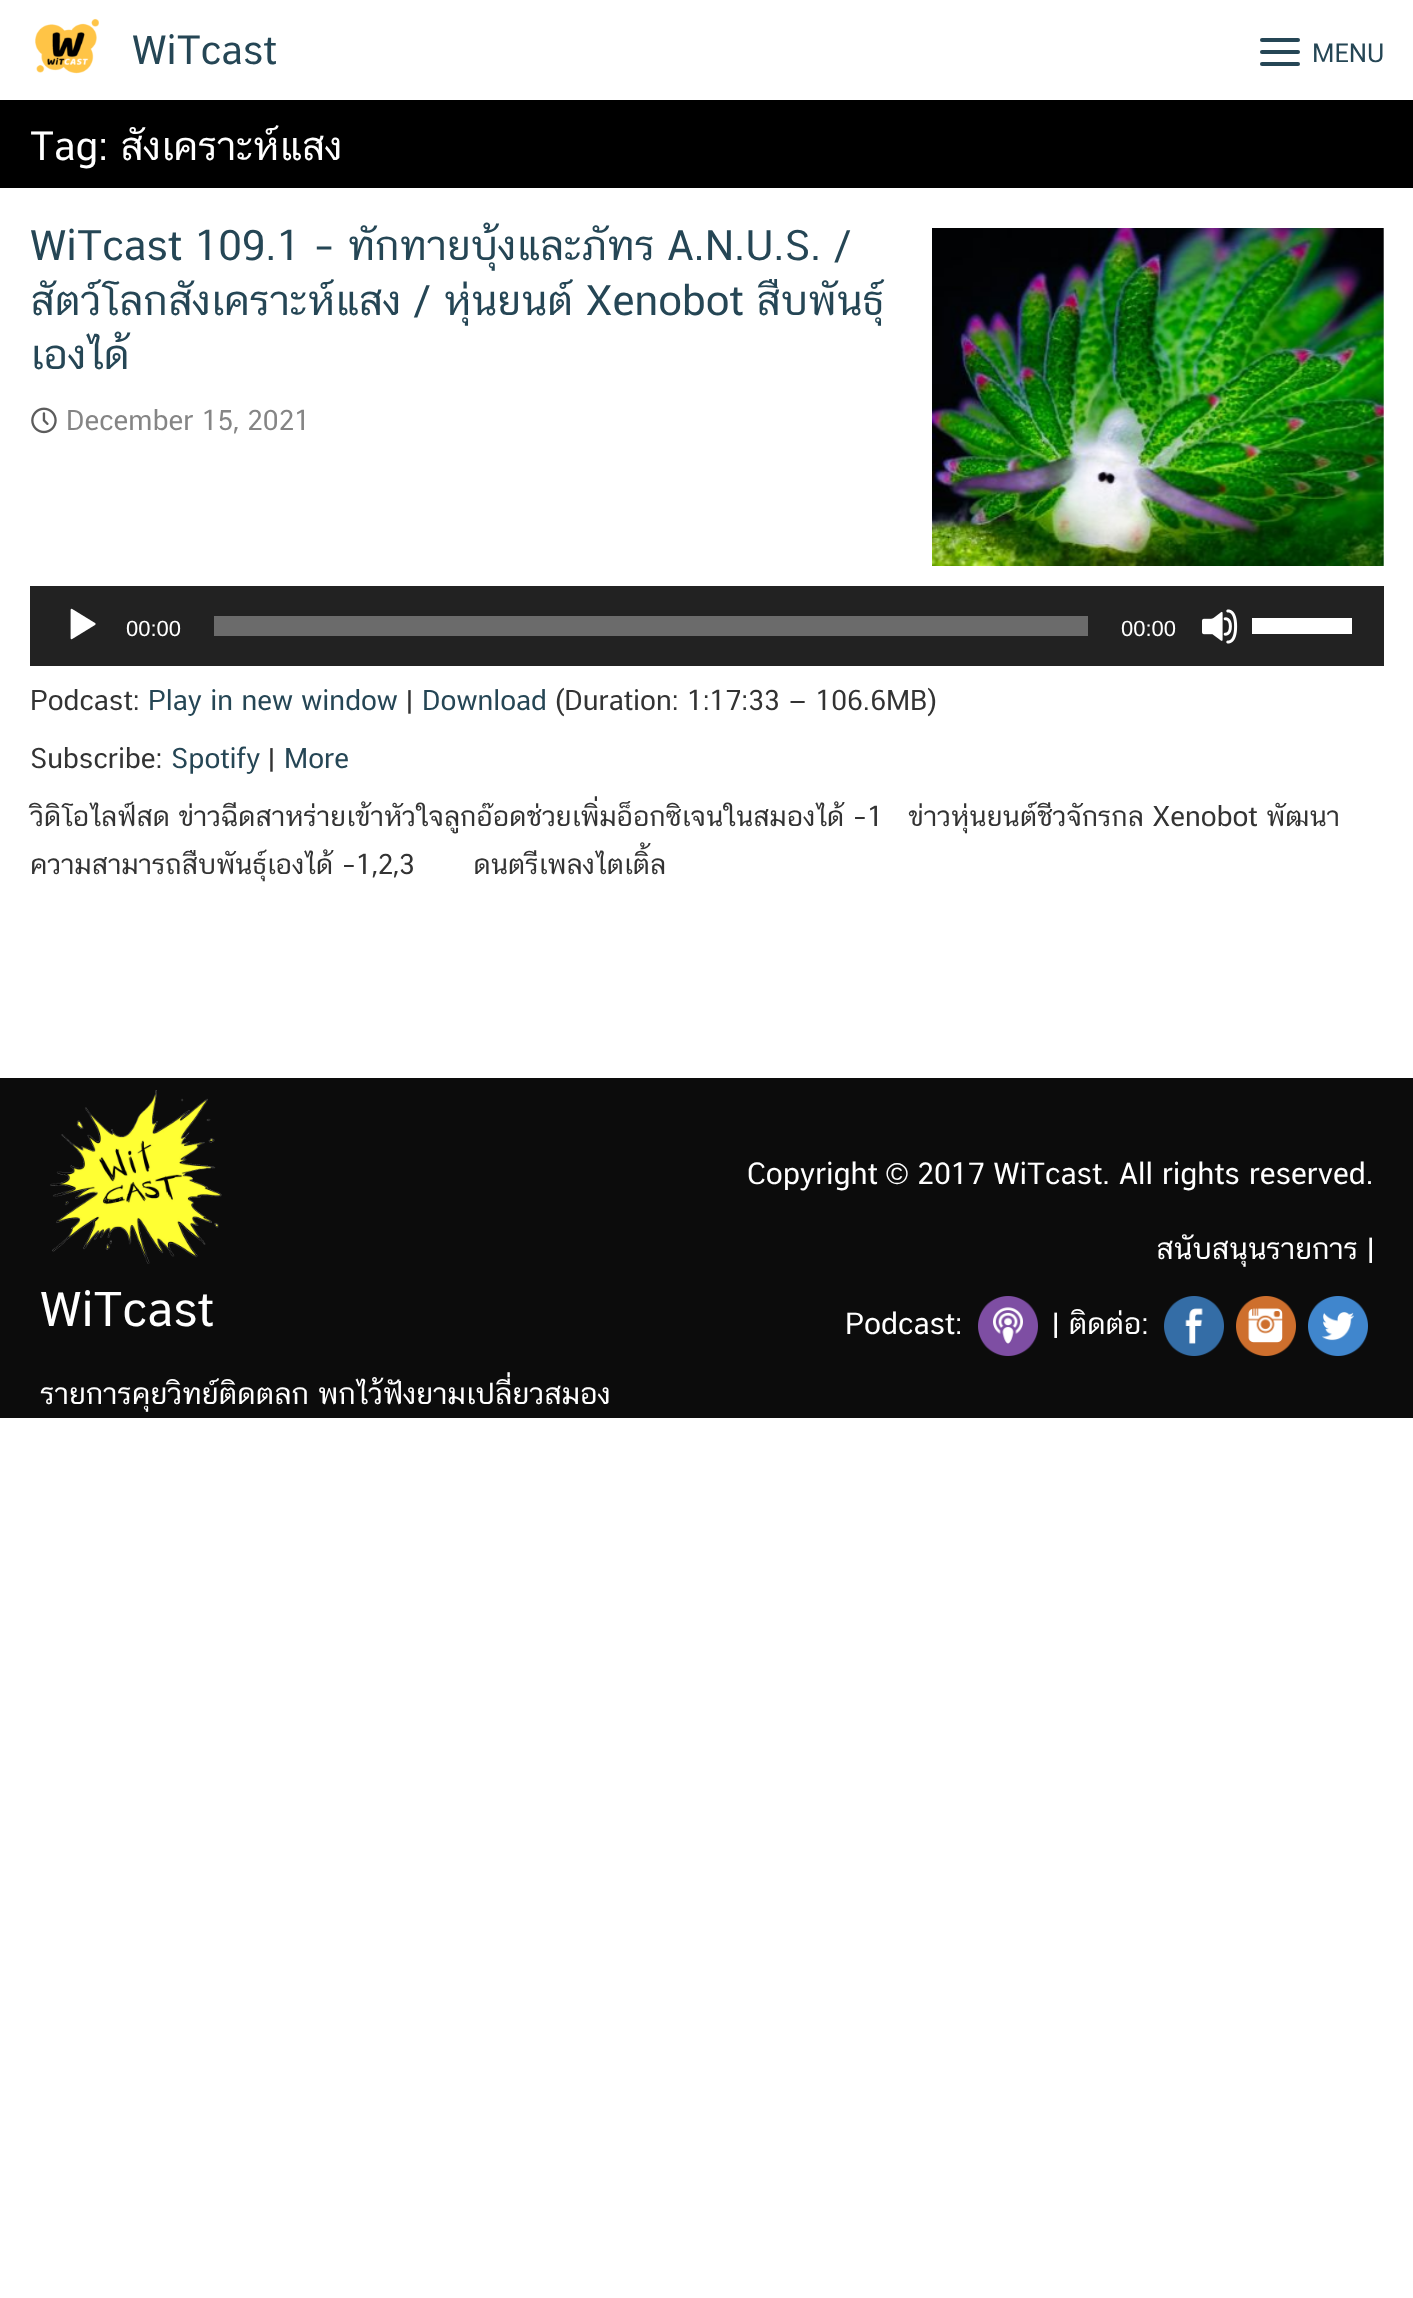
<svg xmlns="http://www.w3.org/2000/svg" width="1413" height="2298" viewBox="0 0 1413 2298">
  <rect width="100%" height="100%" fill="#ffffff"/>
  <image x="35" y="18" width="64" height="56" href="img1.png"/>
  <text x="132" y="64" font-family="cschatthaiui" font-size="40" fill="#254655">WiTcast</text>
  <rect x="1260" y="38" width="40" height="4" rx="2" fill="#254655"/>
  <rect x="1260" y="50" width="40" height="4" rx="2" fill="#254655"/>
  <rect x="1260" y="62" width="40" height="4" rx="2" fill="#254655"/>
  <text x="1312" y="62" font-family="cschatthaiui" font-size="26" fill="#254655">MENU</text>
  <rect x="0" y="100" width="1413" height="88" fill="#000000"/>
  <text x="30" y="160" font-family="cschatthaiui" font-size="40" fill="#ffffff">Tag: สังเคราะห์แสง</text>
  <text x="30" y="260" font-family="cschatthaiui" font-size="42" fill="#254655">WiTcast 109.1 – ทักทายบุ้งและภัทร A.N.U.S. /</text>
  <text x="30" y="315" font-family="cschatthaiui" font-size="42" fill="#254655">สัตว์โลกสังเคราะห์แสง / หุ่นยนต์ Xenobot สืบพันธุ์</text>
  <text x="30" y="369" font-family="cschatthaiui" font-size="42" fill="#254655">เองได้</text>
  <image x="31" y="407" width="26" height="27" href="img2.png"/>
  <text x="66" y="430" font-family="cschatthaiui" font-size="28" fill="#858585">December 15, 2021</text>
  <rect x="30" y="586" width="1354" height="80" fill="#222222"/>
  <image x="70" y="608" width="26" height="32" href="img3.png"/>
  <text x="126" y="636" font-family="Liberation Sans" font-size="22" fill="#ffffff">00:00</text>
  <rect x="214" y="616" width="874" height="20" fill="#6b6b6b"/>
  <text x="1121" y="636" font-family="Liberation Sans" font-size="22" fill="#ffffff">00:00</text>
  <image x="1202" y="609" width="36" height="35" href="img4.png"/>
  <rect x="1252" y="618" width="100" height="16" fill="#ffffff"/>
  <text x="30" y="710" font-family="cschatthaiui" font-size="28" fill="#333333">Podcast:</text>
  <text x="148" y="710" font-family="cschatthaiui" font-size="28" fill="#254655">Play in new window</text>
  <text x="406" y="710" font-family="cschatthaiui" font-size="28" fill="#333333">|</text>
  <text x="422" y="710" font-family="cschatthaiui" font-size="28" fill="#254655">Download</text>
  <text x="555" y="710" font-family="cschatthaiui" font-size="28" fill="#333333">(Duration: 1:17:33 — 106.6MB)</text>
  <text x="30" y="768" font-family="cschatthaiui" font-size="28" fill="#333333">Subscribe:</text>
  <text x="171" y="768" font-family="cschatthaiui" font-size="28" fill="#254655">Spotify</text>
  <text x="268" y="768" font-family="cschatthaiui" font-size="28" fill="#333333">|</text>
  <text x="284" y="768" font-family="cschatthaiui" font-size="28" fill="#254655">More</text>
  <text x="30" y="826" font-family="cschatthaiui" font-size="28" fill="#333333" xml:space="preserve">วิดิโอไลฟ์สด ข่าวฉีดสาหร่ายเข้าหัวใจลูกอ๊อดช่วยเพิ่มอ็อกซิเจนในสมองได้ –1   ข่าวหุ่นยนต์ชีวจักรกล Xenobot พัฒนา</text>
  <text x="30" y="874" font-family="cschatthaiui" font-size="28" fill="#333333" xml:space="preserve">ความสามารถสืบพันธุ์เองได้ –1,2,3       ดนตรีเพลงไตเติ้ล</text>
  <image x="932" y="228" width="452" height="338" href="img5.png"/>
  <rect x="0" y="1078" width="1413" height="340" fill="#0c0c0c"/>
  <text x="747" y="1184" font-family="cschatthaiui" font-size="30" fill="#ffffff">Copyright</text>
  <text x="886" y="1184" font-family="Liberation Sans" font-size="30" fill="#ffffff">©</text>
  <text x="917" y="1184" font-family="cschatthaiui" font-size="30" fill="#ffffff">2017 WiTcast. All rights reserved.</text>
  <text x="1156" y="1259" font-family="cschatthaiui" font-size="30" fill="#ffffff">สนับสนุนรายการ |</text>
  <text x="845" y="1334" font-family="cschatthaiui" font-size="30" fill="#ffffff">Podcast:</text>
  <image x="978" y="1296" width="60" height="60" href="img6.png"/>
  <text x="1052" y="1334" font-family="cschatthaiui" font-size="30" fill="#ffffff">| ติดต่อ:</text>
  <image x="1164" y="1296" width="60" height="60" href="img7.png"/>
  <image x="1236" y="1296" width="60" height="60" href="img8.png"/>
  <image x="1308" y="1296" width="60" height="60" href="img9.png"/>
  <image x="50" y="1090" width="172" height="174" href="img10.png"/>
  <text x="40" y="1326" font-family="cschatthaiui" font-size="48" fill="#ffffff">WiTcast</text>
  <text x="40" y="1404" font-family="cschatthaiui" font-size="30" fill="#ffffff">รายการคุยวิทย์ติดตลก พกไว้ฟังยามเปลี่ยวสมอง</text>
</svg>
